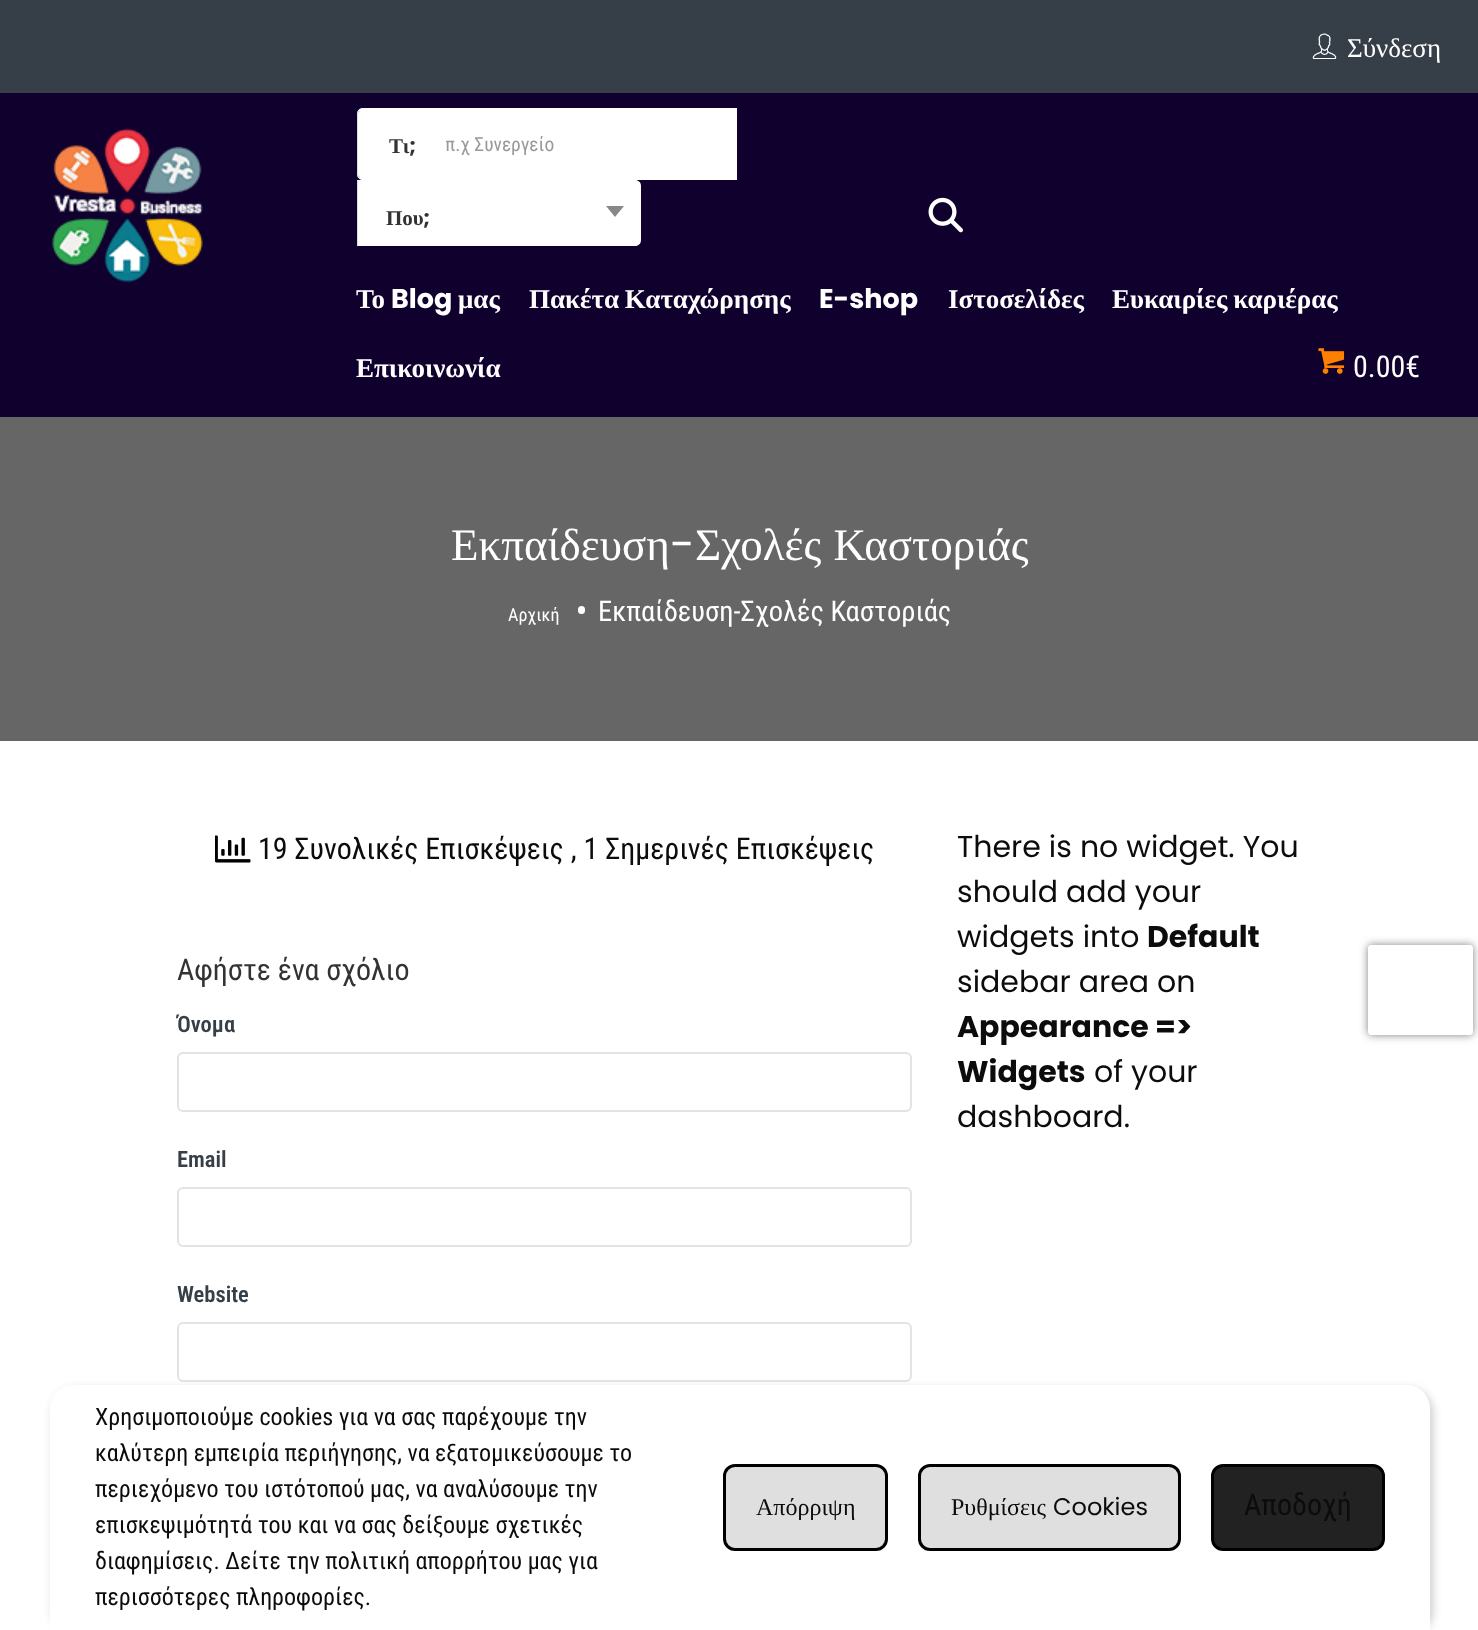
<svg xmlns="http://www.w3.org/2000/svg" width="1478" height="1630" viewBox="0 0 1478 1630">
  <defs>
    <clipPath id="clip1"><rect x="446" y="134" width="271" height="22"/></clipPath>
    <filter id="blur1" x="-50%" y="-200%" width="200%" height="500%"><feGaussianBlur stdDeviation="5"/></filter>
    <clipPath id="clip2"><path d="M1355 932H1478V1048H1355ZM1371 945H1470C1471.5 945 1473 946.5 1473 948V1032C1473 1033.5 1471.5 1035 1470 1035H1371C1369.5 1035 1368 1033.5 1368 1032V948C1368 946.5 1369.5 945 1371 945Z" clip-rule="evenodd"/></clipPath>
    <filter id="blur2" x="-50%" y="-200%" width="200%" height="500%"><feGaussianBlur stdDeviation="4"/></filter>
  </defs>
  <rect width="100%" height="100%" fill="#ffffff"/>
  <rect x="0" y="0" width="1478" height="93" fill="#363f48"/>
  <image x="1312" y="33" width="25" height="26" href="img1.png"/>
  <text x="1347" y="57" font-family="Liberation Serif" font-size="27" fill="#ffffff">Σύνδεση</text>
  <rect x="0" y="93" width="1478" height="324" fill="#10002d"/>
  <image x="52" y="128" width="151" height="155" href="img2.png"/>
  <path d="M363 108H737V180H363C359.5 180 357 177.5 357 174V114C357 110.5 359.5 108 363 108Z" fill="#ffffff"/>
  <path d="M363 108C362 108 360 109 359 110L360 111L363 110H734L736 108Z" fill="#ffffff"/>
  <path d="M363 180H736L734 178H363L360 177L359 178C360 179 362 180 363 180Z" fill="#ffffff"/>
  <path d="M357 114V174C357 176 358 177 359 178L360 177L358 174V114L360 111L359 110C358 111 357 112 357 114Z" fill="#dedede"/>
  <text x="389" y="153" font-family="Liberation Serif" font-size="21" font-weight="bold" fill="#333333">Τι</text>
  <text x="409" y="153" font-family="Poppins" font-size="21" font-weight="bold" fill="#333333">;</text>
  <g clip-path="url(#clip1)">
    <text x="445" y="151" font-family="Roboto Condensed" font-size="19.5" fill="#999999">π.χ Συνεργείο</text>
  </g>
  <path d="M357 180H635C638.5 180 641 182.5 641 186V240C641 243.5 638.5 246 635 246H357Z" fill="#ffffff"/>
  <path d="M357 180L359 182H635L637 183L639 182C638 181 636 180 634 180Z" fill="#ffffff"/>
  <path d="M639 182C640 183 640 185 640 186V240C640 241 640 243 639 244L637 243C638 242 639 241 639 240V186C639 185 638 184 637 183Z" fill="#ffffff"/>
  <path d="M634 246C636 246 638 245 639 244L637 243L635 244H359L357 246Z" fill="#ffffff"/>
  <path d="M357 180V246L359 244H358V182H359Z" fill="#dedede"/>
  <text x="386" y="225" font-family="Liberation Serif" font-size="21" font-weight="bold" fill="#333333">Που</text>
  <text x="423" y="225" font-family="Poppins" font-size="21" font-weight="bold" fill="#333333">;</text>
  <path d="M606 206H624L615 217Z" fill="#888888"/>
  <image x="928" y="197" width="35" height="36" href="img3.png"/>
  <text x="356" y="308" font-family="Liberation Serif" font-size="27" font-weight="bold" fill="#ffffff">Το</text>
  <text x="391" y="308" font-family="Poppins" font-size="27" font-weight="bold" fill="#ffffff">Blog</text>
  <text x="458" y="308" font-family="Liberation Serif" font-size="27" font-weight="bold" fill="#ffffff">μας</text>
  <text x="529" y="308" word-spacing="-1" font-family="Liberation Serif" font-size="27" font-weight="bold" fill="#ffffff">Πακέτα Καταχώρησης</text>
  <text x="819" y="308" font-family="Poppins" font-size="27" font-weight="bold" fill="#ffffff">E-shop</text>
  <text x="948" y="308" font-family="Liberation Serif" font-size="27" font-weight="bold" fill="#ffffff">Ιστοσελίδες</text>
  <text x="1112" y="308" word-spacing="-1" font-family="Liberation Serif" font-size="27" font-weight="bold" fill="#ffffff">Ευκαιρίες καριέρας</text>
  <text x="356" y="377" font-family="Liberation Serif" font-size="27" font-weight="bold" fill="#ffffff">Επικοινωνία</text>
  <image x="1318" y="348" width="27" height="26" href="img4.png"/>
  <text x="1353" y="377" font-family="Roboto Condensed" font-size="30" fill="#ffffff">0.00€</text>
  <rect x="0" y="417" width="1478" height="324" fill="#666666"/>
  <text x="451" y="560" font-family="Liberation Serif" font-size="45" fill="#ffffff">Εκπαίδευση</text>
  <text x="670" y="560" font-family="Poppins" font-size="45" fill="#ffffff">-</text>
  <text x="695" y="560" word-spacing="1" font-family="Liberation Serif" font-size="45" fill="#ffffff">Σχολές Καστοριάς</text>
  <text x="508" y="621" font-family="Roboto Condensed" font-size="18" fill="#ffffff">Αρχική</text>
  <rect x="578" y="606" width="7" height="8" rx="3.5" fill="#ffffff"/>
  <text x="598" y="621" font-family="Roboto Condensed" font-size="28.5" fill="#ffffff">Εκπαίδευση-Σχολές Καστοριάς</text>
  <image x="215" y="835" width="36" height="28" href="img5.png"/>
  <text x="258" y="859" font-family="Roboto Condensed" font-size="30" fill="#0c0c0c">19 Συνολικές Επισκέψεις , 1 Σημερινές Επισκέψεις</text>
  <text x="177" y="980" font-family="Roboto Condensed" font-size="30" fill="#333333">Αφήστε ένα σχόλιο</text>
  <text x="177" y="1032" font-family="Roboto Condensed" font-size="22.5" font-weight="600" fill="#363f48">Όνομα</text>
  <rect x="178" y="1053" width="733" height="58" rx="5" fill="none" stroke="#e3e3e3" stroke-width="2"/>
  <text x="177" y="1167" font-family="Roboto Condensed" font-size="22.5" font-weight="600" fill="#363f48">Email</text>
  <rect x="178" y="1188" width="733" height="58" rx="5" fill="none" stroke="#e3e3e3" stroke-width="2"/>
  <text x="177" y="1302" font-family="Roboto Condensed" font-size="22.5" font-weight="600" fill="#363f48">Website</text>
  <rect x="178" y="1323" width="733" height="58" rx="5" fill="none" stroke="#e3e3e3" stroke-width="2"/>
  <text x="957" y="857" font-family="Poppins" font-size="30" fill="#0c0c0c">There is no widget. You</text>
  <text x="957" y="902" font-family="Poppins" font-size="30" fill="#0c0c0c">should add your</text>
  <text x="957" y="947" font-family="Poppins" font-size="30" fill="#0c0c0c">widgets into</text>
  <text x="1147" y="947" font-family="Poppins" font-size="30" font-weight="bold" fill="#0c0c0c">Default</text>
  <text x="957" y="992" font-family="Poppins" font-size="30" fill="#0c0c0c">sidebar area on</text>
  <text x="957" y="1037" font-family="Poppins" font-size="30" font-weight="bold" fill="#0c0c0c">Appearance =&gt;</text>
  <text x="957" y="1082" font-family="Poppins" font-size="30" font-weight="bold" fill="#0c0c0c">Widgets</text>
  <text x="1094" y="1082" font-family="Poppins" font-size="30" fill="#0c0c0c">of your</text>
  <text x="957" y="1127" font-family="Poppins" font-size="30" fill="#0c0c0c">dashboard.</text>
  <rect x="53" y="1389" width="1380" height="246" rx="24" fill="#000000" fill-opacity="0.2" filter="url(#blur1)"/>
  <path d="M74 1385H1406C1419.5 1385 1430 1395.5 1430 1409V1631H50V1409C50 1395.5 60.5 1385 74 1385Z" fill="#ffffff"/>
  <text x="95" y="1425" font-family="Roboto Condensed" font-size="24" fill="#0c0c0c">Χρησιμοποιούμε cookies για να σας παρέχουμε την</text>
  <text x="95" y="1461" font-family="Roboto Condensed" font-size="24" fill="#0c0c0c">καλύτερη εμπειρία περιήγησης, να εξατομικεύσουμε το</text>
  <text x="95" y="1497" font-family="Roboto Condensed" font-size="24" fill="#0c0c0c">περιεχόμενο του ιστότοπού μας, να αναλύσουμε την</text>
  <text x="95" y="1533" font-family="Roboto Condensed" font-size="24" fill="#0c0c0c">επισκεψιμότητά του και να σας δείξουμε σχετικές</text>
  <text x="95" y="1569" font-family="Roboto Condensed" font-size="24" fill="#0c0c0c">διαφημίσεις. Δείτε την πολιτική απορρήτου μας για</text>
  <text x="95" y="1605" font-family="Roboto Condensed" font-size="24" fill="#0c0c0c">περισσότερες πληροφορίες.</text>
  <rect x="724.5" y="1465.5" width="162" height="84" rx="10.5" fill="#dfdfdf" stroke="#000000" stroke-width="3"/>
  <text x="756" y="1515" font-family="Liberation Serif" font-size="24" fill="#0c0c0c">Απόρριψη</text>
  <rect x="919.5" y="1465.5" width="260" height="84" rx="10.5" fill="#dfdfdf" stroke="#000000" stroke-width="3"/>
  <text x="951" y="1515" font-family="Liberation Serif" font-size="24" fill="#0c0c0c">Ρυθμίσεις</text>
  <text x="1053" y="1515" font-family="Poppins" font-size="24" fill="#0c0c0c">Cookies</text>
  <rect x="1212.5" y="1465.5" width="171" height="84" rx="10.5" fill="#222222" stroke="#000000" stroke-width="3"/>
  <text x="1244" y="1515" font-family="Roboto Condensed" font-size="30" fill="#0c0c0c">Αποδοχή</text>
  <g clip-path="url(#clip2)">
    <rect x="1368" y="945" width="105" height="90" rx="3" fill="#808080" filter="url(#blur2)"/>
  </g>
</svg>
